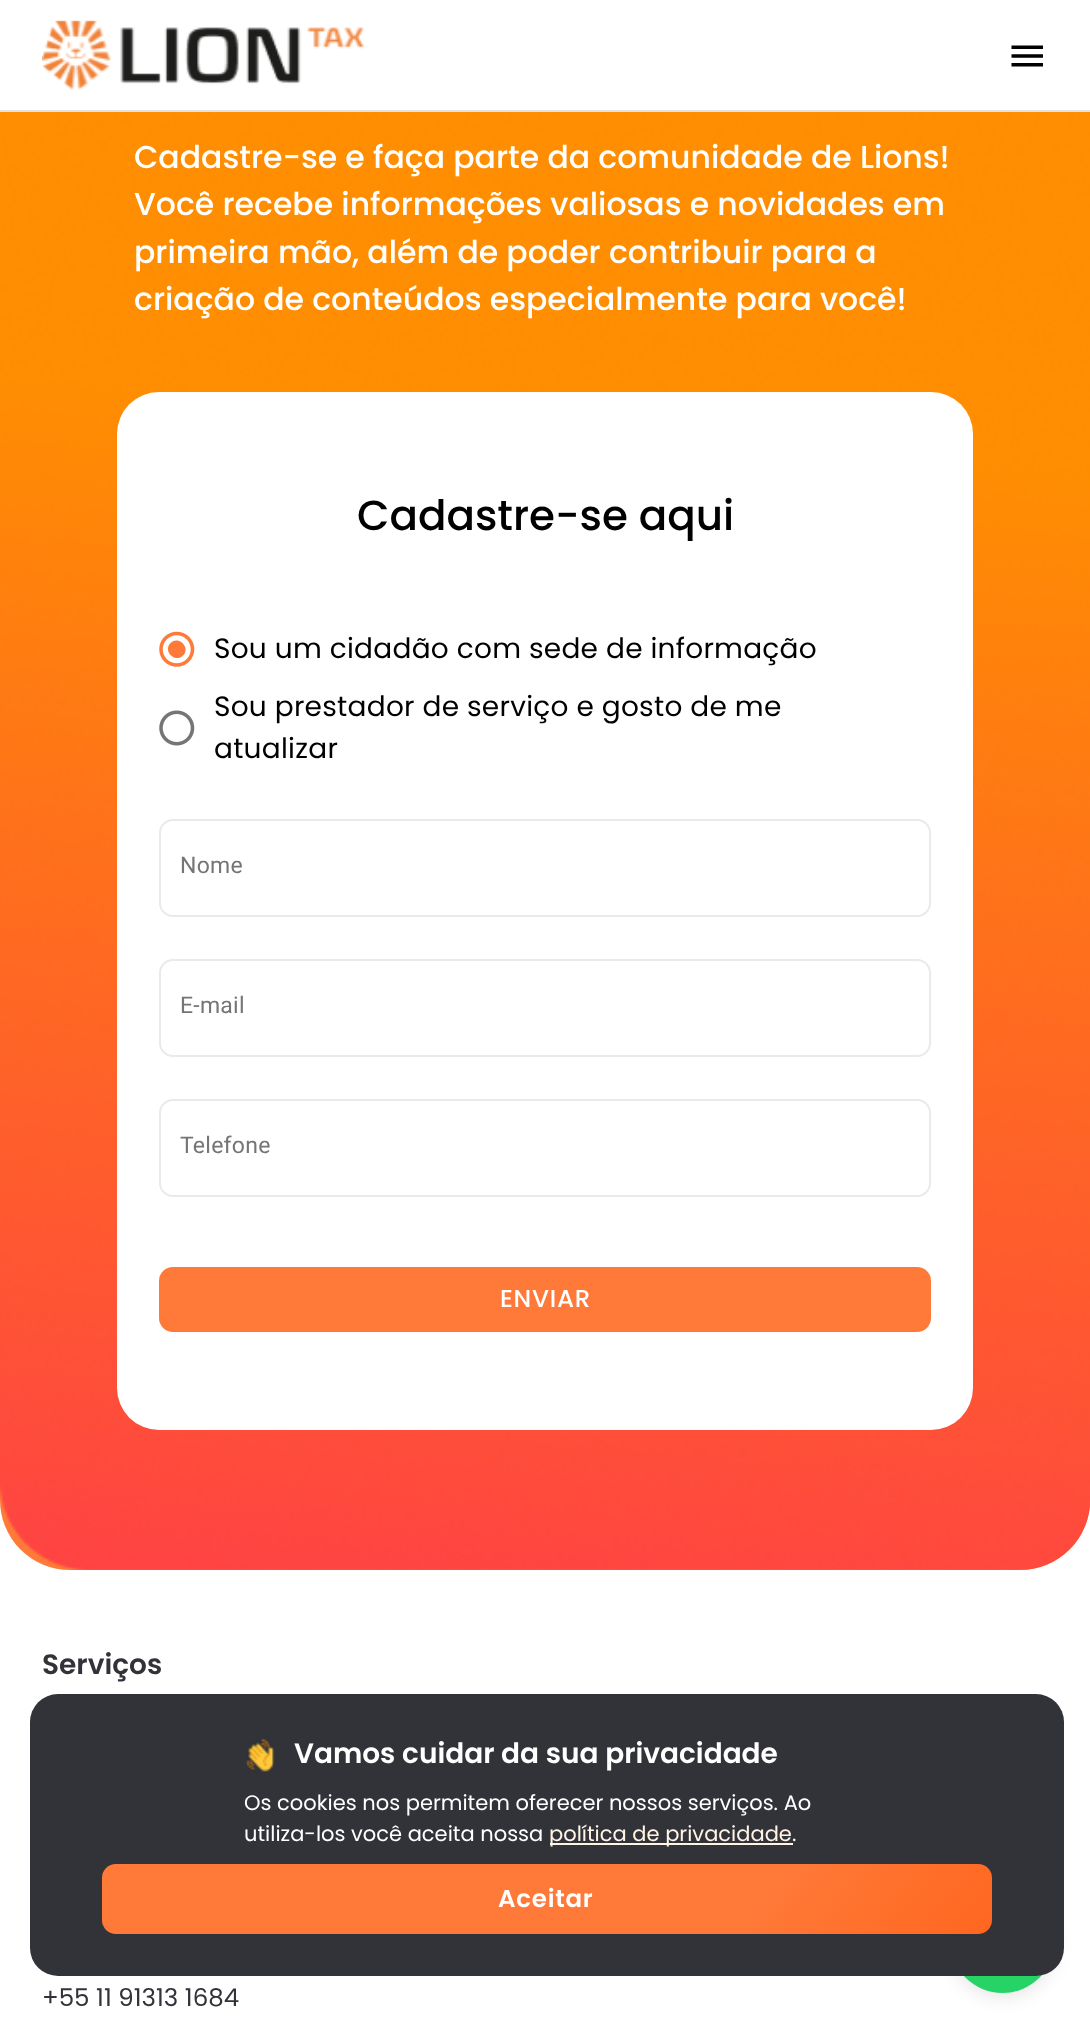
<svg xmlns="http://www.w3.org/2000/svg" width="1090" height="2027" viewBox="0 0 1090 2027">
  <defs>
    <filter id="blur1" x="-50%" y="-200%" width="200%" height="500%"><feGaussianBlur stdDeviation="9"/></filter>
    <linearGradient id="g1" gradientUnits="userSpaceOnUse" x1="272" y1="1664" x2="1004" y2="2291"><stop offset="0.54" stop-color="#ff7a39"/><stop offset="1" stop-color="#ff4f00"/></linearGradient>
  </defs>
  <rect width="100%" height="100%" fill="#ffffff"/>
  <rect x="0" y="-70" width="1090" height="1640" rx="70" fill="#ff7a39"/>
  <rect x="0" y="0" width="1090" height="110" fill="#ffffff"/>
  <rect x="0" y="110" width="1090" height="2" fill="#e2e2e2"/>
  <image x="42" y="20" width="322" height="70" href="img1.png"/>
  <image x="1011" y="45" width="32" height="22" href="img2.png"/>
  <image x="0" y="112" width="1090" height="1458" href="img3.png"/>
  <text x="134" y="168" font-family="Poppins" font-size="31.5" font-weight="500" fill="#ffffff">Cadastre-se e faça parte da comunidade de Lions!</text>
  <text x="134" y="215" font-family="Poppins" font-size="31.5" font-weight="500" fill="#ffffff">Você recebe informações valiosas e novidades em</text>
  <text x="134" y="263" font-family="Poppins" font-size="31.5" font-weight="500" fill="#ffffff">primeira mão, além de poder contribuir para a</text>
  <text x="134" y="310" font-family="Poppins" font-size="31.5" font-weight="500" fill="#ffffff">criação de conteúdos especialmente para você!</text>
  <rect x="117" y="392" width="856" height="1038" rx="42" fill="#ffffff"/>
  <text x="357" y="530" font-family="Poppins" font-size="42" font-weight="500" fill="#000000">Cadastre-se aqui</text>
  <image x="159" y="631" width="36" height="36" href="img4.png"/>
  <path d="M170.5 643C178.5 635 191 647.5 183 655.5C175 663.5 162.5 651 170.5 643Z" fill="#ff7a39"/>
  <text x="214" y="658" font-family="Poppins" font-size="28" letter-spacing="0.25" fill="#000000">Sou um cidadão com sede de informação</text>
  <image x="159" y="710" width="36" height="36" href="img5.png"/>
  <text x="214" y="716" font-family="Poppins" font-size="28" letter-spacing="0.25" fill="#000000">Sou prestador de serviço e gosto de me</text>
  <text x="214" y="758" font-family="Poppins" font-size="28" letter-spacing="0.25" fill="#000000">atualizar</text>
  <rect x="160" y="820" width="770" height="96" rx="13" fill="none" stroke="#e8eaec" stroke-width="2"/>
  <text x="180" y="873" font-family="Roboto" font-size="23" letter-spacing="0.25" fill="#757575">Nome</text>
  <rect x="160" y="960" width="770" height="96" rx="13" fill="none" stroke="#e8eaec" stroke-width="2"/>
  <text x="180" y="1013" font-family="Roboto" font-size="23" letter-spacing="0.25" fill="#757575">E-mail</text>
  <rect x="160" y="1100" width="770" height="96" rx="13" fill="none" stroke="#e8eaec" stroke-width="2"/>
  <text x="180" y="1153" font-family="Roboto" font-size="23" letter-spacing="0.25" fill="#757575">Telefone</text>
  <rect x="159" y="1267" width="772" height="65" rx="14" fill="#ff7a39"/>
  <text x="500" y="1307" font-family="Poppins" font-size="24.5" font-weight="500" letter-spacing="0.75" fill="#ffffff">ENVIAR</text>
  <text x="42" y="1674" font-family="Poppins" font-size="28" font-weight="600" fill="#323339">Serviços</text>
  <text x="42" y="2006" font-family="Poppins" font-size="24.5" fill="#323339">+55 11 91313 1684</text>
  <rect x="950" y="1892" width="105" height="105" rx="52.5" fill="#000000" fill-opacity="0.1" filter="url(#blur1)"/>
  <circle cx="1002.5" cy="1940.5" r="52.5" fill="#25d366"/>
  <rect x="30" y="1694" width="1034" height="282" rx="28" fill="#323339"/>
  <image x="246" y="1739" width="29" height="33" href="img6.png"/>
  <text x="294" y="1763" font-family="Poppins" font-size="28" font-weight="600" fill="#ffffff">Vamos cuidar da sua privacidade</text>
  <text x="244" y="1810" font-family="Poppins" font-size="21" fill="#ffffff">Os cookies nos permitem oferecer nossos serviços. Ao</text>
  <text x="244" y="1841" font-family="Poppins" font-size="21" fill="#ffffff">utiliza-los você aceita nossa</text>
  <rect x="550" y="1843" width="243" height="2" fill="#fff4e6"/>
  <text x="549" y="1841" font-family="Poppins" font-size="21" fill="#fff4e6">política de privacidade</text>
  <text x="792" y="1841" font-family="Poppins" font-size="21" fill="#ffffff">.</text>
  <rect x="102" y="1864" width="890" height="70" rx="14" fill="url(#g1)"/>
  <text x="498" y="1907" font-family="Poppins" font-size="24.5" font-weight="600" letter-spacing="0.75" fill="#ffffff">Aceitar</text>
</svg>
